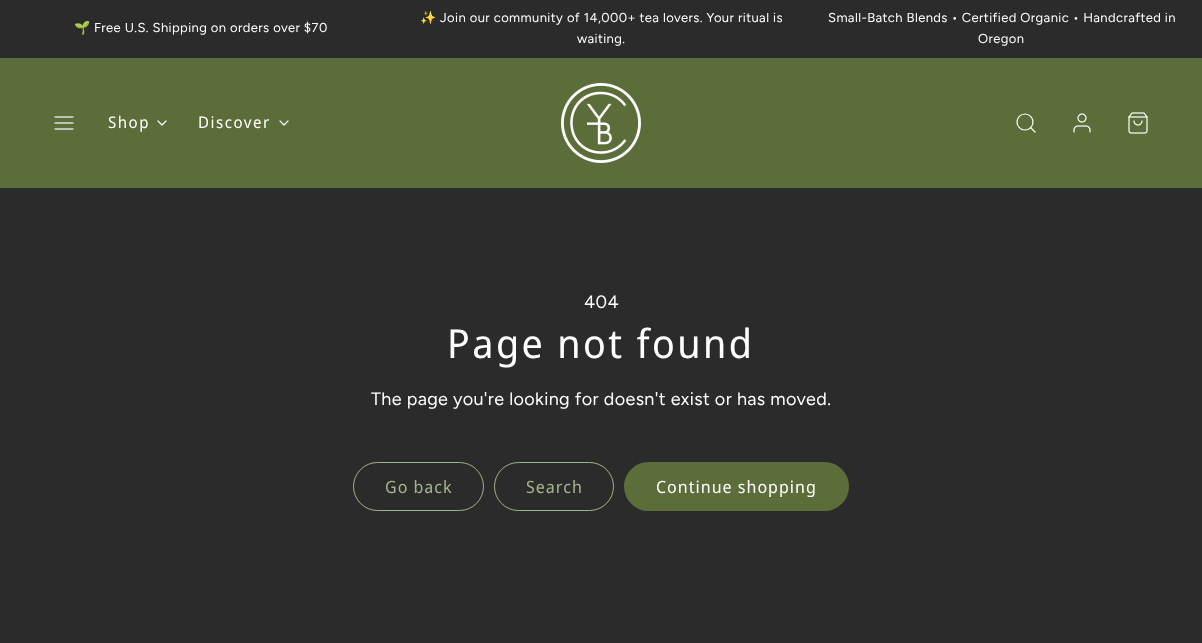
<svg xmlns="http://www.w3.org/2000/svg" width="1202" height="643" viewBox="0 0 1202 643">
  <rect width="100%" height="100%" fill="#2b2b2b"/>
  <text x="74" y="32" font-family="Noto Color Emoji" font-size="13" letter-spacing="0.4" fill="#ffffff">🌱</text>
  <text x="94" y="32" font-family="Figtree" font-size="13" letter-spacing="0.4" fill="#ffffff">Free U.S. Shipping on orders over $70</text>
  <text x="420" y="22" font-family="Noto Color Emoji" font-size="13" letter-spacing="0.4" fill="#ffffff">✨</text>
  <text x="440" y="22" font-family="Figtree" font-size="13" letter-spacing="0.4" fill="#ffffff">Join our community of 14,000+ tea lovers. Your ritual is</text>
  <text x="577" y="43" font-family="Figtree" font-size="13" letter-spacing="0.4" fill="#ffffff">waiting.</text>
  <text x="828" y="22" font-family="Figtree" font-size="13" letter-spacing="0.4" fill="#ffffff">Small-Batch Blends • Certified Organic • Handcrafted in</text>
  <text x="978" y="43" font-family="Figtree" font-size="13" letter-spacing="0.4" fill="#ffffff">Oregon</text>
  <rect x="0" y="58" width="1202" height="130" fill="#5b6d39"/>
  <image x="54" y="116" width="20" height="14" href="img1.png"/>
  <text x="108" y="128" font-family="Noto Sans Display" font-size="16" letter-spacing="1.5" fill="#ffffff">Shop</text>
  <path d="M158 121L162 125L166 121" fill="none" stroke="#ffffff" stroke-width="1.2" stroke-linecap="round" stroke-linejoin="round"/>
  <text x="198" y="128" font-family="Noto Sans Display" font-size="16" letter-spacing="1.5" fill="#ffffff">Discover</text>
  <path d="M280 121L284 125L288 121" fill="none" stroke="#ffffff" stroke-width="1.2" stroke-linecap="round" stroke-linejoin="round"/>
  <image x="561" y="83" width="80" height="80" href="img2.png"/>
  <circle cx="1025" cy="122" r="8" fill="none" stroke="#ffffff" stroke-width="1.2"/>
  <path d="M1035 132L1030.5 127.5" fill="none" stroke="#ffffff" stroke-width="1.2" stroke-linecap="round" stroke-linejoin="round"/>
  <image x="1073" y="113" width="18" height="20" href="img3.png"/>
  <image x="1128" y="112" width="20" height="22" href="img4.png"/>
  <text x="584" y="308" font-family="Figtree" font-size="18" letter-spacing="0.35" fill="#ffffff">404</text>
  <text x="447" y="358" font-family="Noto Sans Display" font-size="40" letter-spacing="2.4" fill="#ffffff">Page not found</text>
  <text x="371" y="405" font-family="Figtree" font-size="18" letter-spacing="0.35" fill="#ffffff">The page you're looking for doesn't exist or has moved.</text>
  <rect x="353.5" y="462.5" width="130" height="48" rx="24" fill="none" stroke="#a1b489"/>
  <text x="385" y="493" font-family="Noto Sans Display" font-size="17" letter-spacing="1" fill="#a1b489">Go back</text>
  <rect x="494.5" y="462.5" width="119" height="48" rx="24" fill="none" stroke="#a1b489"/>
  <text x="526" y="493" font-family="Noto Sans Display" font-size="17" letter-spacing="1" fill="#a1b489">Search</text>
  <rect x="624" y="462" width="225" height="49" rx="24.5" fill="#5b6d39"/>
  <text x="656" y="493" font-family="Noto Sans Display" font-size="17" letter-spacing="1" fill="#ffffff">Continue shopping</text>
</svg>
